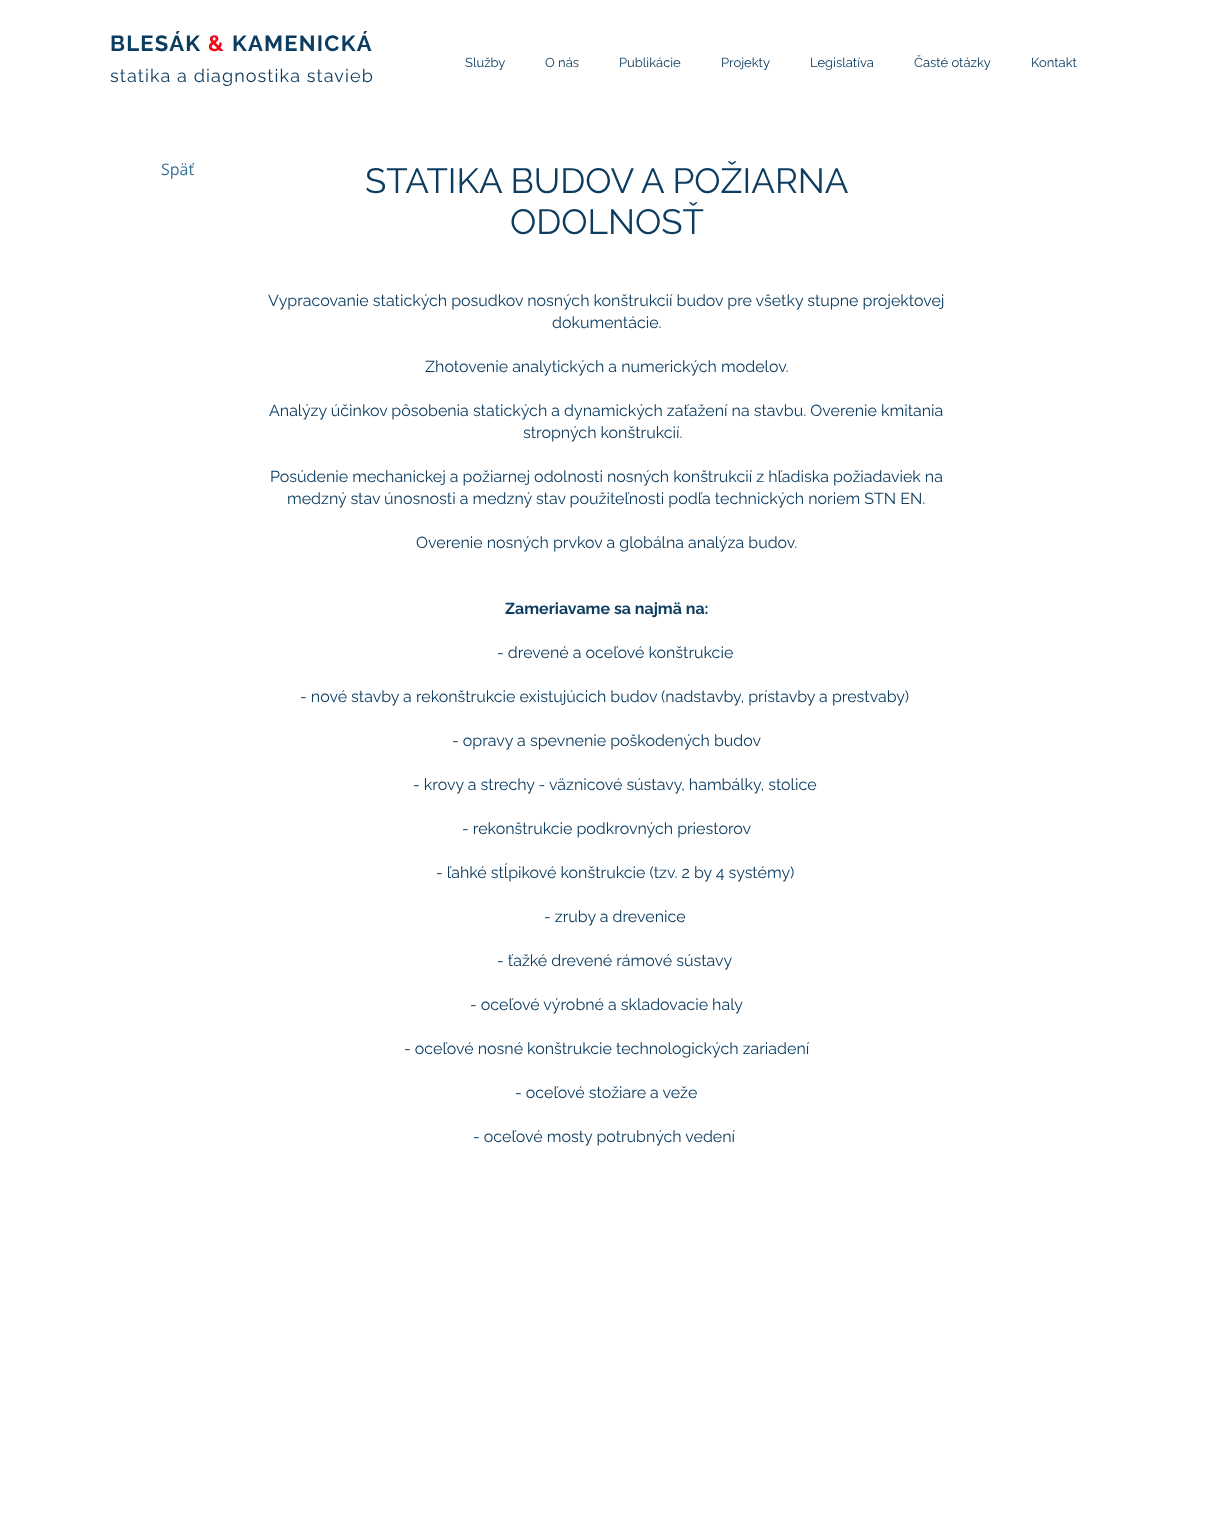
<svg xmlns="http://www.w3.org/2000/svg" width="1214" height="1533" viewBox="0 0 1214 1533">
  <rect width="100%" height="100%" fill="#ffffff"/>
  <text x="110" y="51" font-family="Raleway" font-size="22" font-weight="bold" letter-spacing="1.25" fill="#0c3c60">BLESÁK</text>
  <text x="208" y="51" font-family="Raleway" font-size="22" font-weight="bold" letter-spacing="1.25" fill="#f60419">&amp;</text>
  <text x="232" y="51" font-family="Raleway" font-size="22" font-weight="bold" letter-spacing="1.25" fill="#0c3c60">KAMENICKÁ</text>
  <text x="110" y="82" font-family="Raleway" font-size="18" letter-spacing="1.1" fill="#0c3c60">statika a diagnostika stavieb</text>
  <text x="465" y="67" font-family="Raleway" font-size="13" fill="#0c3c60">Služby</text>
  <text x="545" y="67" font-family="Raleway" font-size="13" fill="#0c3c60">O nás</text>
  <text x="619" y="67" font-family="Raleway" font-size="13" fill="#0c3c60">Publikácie</text>
  <text x="721" y="67" font-family="Raleway" font-size="13" fill="#0c3c60">Projekty</text>
  <text x="810" y="67" font-family="Raleway" font-size="13" fill="#0c3c60">Legislatíva</text>
  <text x="914" y="67" font-family="Raleway" font-size="13" fill="#0c3c60">Časté otázky</text>
  <text x="1031" y="67" font-family="Raleway" font-size="13" fill="#0c3c60">Kontakt</text>
  <text x="161" y="175" font-family="Open Sans" font-size="16" fill="#39729b">Späť</text>
  <text x="365" y="193" font-family="Raleway" font-size="35" fill="#0c3c60">STATIKA BUDOV A POŽIARNA</text>
  <text x="510" y="234" font-family="Raleway" font-size="35" fill="#0c3c60">ODOLNOSŤ</text>
  <text x="268" y="306" font-family="Raleway" font-size="16" fill="#0c3c60">Vypracovanie statických posudkov nosných konštrukcií budov pre všetky stupne projektovej</text>
  <text x="552" y="328" font-family="Raleway" font-size="16" fill="#0c3c60">dokumentácie.</text>
  <text x="425" y="372" font-family="Raleway" font-size="16" fill="#0c3c60">Zhotovenie analytických a numerických modelov.</text>
  <text x="269" y="416" font-family="Raleway" font-size="16" fill="#0c3c60">Analýzy účinkov pôsobenia statických a dynamických zaťažení na stavbu. Overenie kmitania</text>
  <text x="523" y="438" font-family="Raleway" font-size="16" fill="#0c3c60">stropných konštrukcií.</text>
  <text x="270" y="482" font-family="Raleway" font-size="16" fill="#0c3c60">Posúdenie mechanickej a požiarnej odolnosti nosných konštrukcií z hľadiska požiadaviek na</text>
  <text x="287" y="504" font-family="Raleway" font-size="16" fill="#0c3c60">medzný stav únosnosti a medzný stav použiteľnosti podľa technických noriem STN EN.</text>
  <text x="416" y="548" font-family="Raleway" font-size="16" fill="#0c3c60">Overenie nosných prvkov a globálna analýza budov.</text>
  <text x="505" y="614" font-family="Raleway" font-size="16" font-weight="bold" fill="#0c3c60">Zameriavame sa najmä na:</text>
  <text x="497" y="658" font-family="Raleway" font-size="16" fill="#0c3c60">- drevené a oceľové konštrukcie</text>
  <text x="300" y="702" font-family="Raleway" font-size="16" fill="#0c3c60">- nové stavby a rekonštrukcie existujúcich budov (nadstavby, prístavby a prestvaby)</text>
  <text x="452" y="746" font-family="Raleway" font-size="16" fill="#0c3c60">- opravy a spevnenie poškodených budov</text>
  <text x="413" y="790" font-family="Raleway" font-size="16" fill="#0c3c60">- krovy a strechy - väznicové sústavy, hambálky, stolice</text>
  <text x="462" y="834" font-family="Raleway" font-size="16" fill="#0c3c60">- rekonštrukcie podkrovných priestorov</text>
  <text x="436" y="878" font-family="Raleway" font-size="16" fill="#0c3c60">- ľahké stĺpikové konštrukcie (tzv. 2 by 4 systémy)</text>
  <text x="544" y="922" font-family="Raleway" font-size="16" fill="#0c3c60">- zruby a drevenice</text>
  <text x="497" y="966" font-family="Raleway" font-size="16" fill="#0c3c60">- ťažké drevené rámové sústavy</text>
  <text x="470" y="1010" font-family="Raleway" font-size="16" fill="#0c3c60">- oceľové výrobné a skladovacie haly</text>
  <text x="404" y="1054" font-family="Raleway" font-size="16" fill="#0c3c60">- oceľové nosné konštrukcie technologických zariadení</text>
  <text x="515" y="1098" font-family="Raleway" font-size="16" fill="#0c3c60">- oceľové stožiare a veže</text>
  <text x="473" y="1142" font-family="Raleway" font-size="16" fill="#0c3c60">- oceľové mosty potrubných vedení</text>
</svg>
